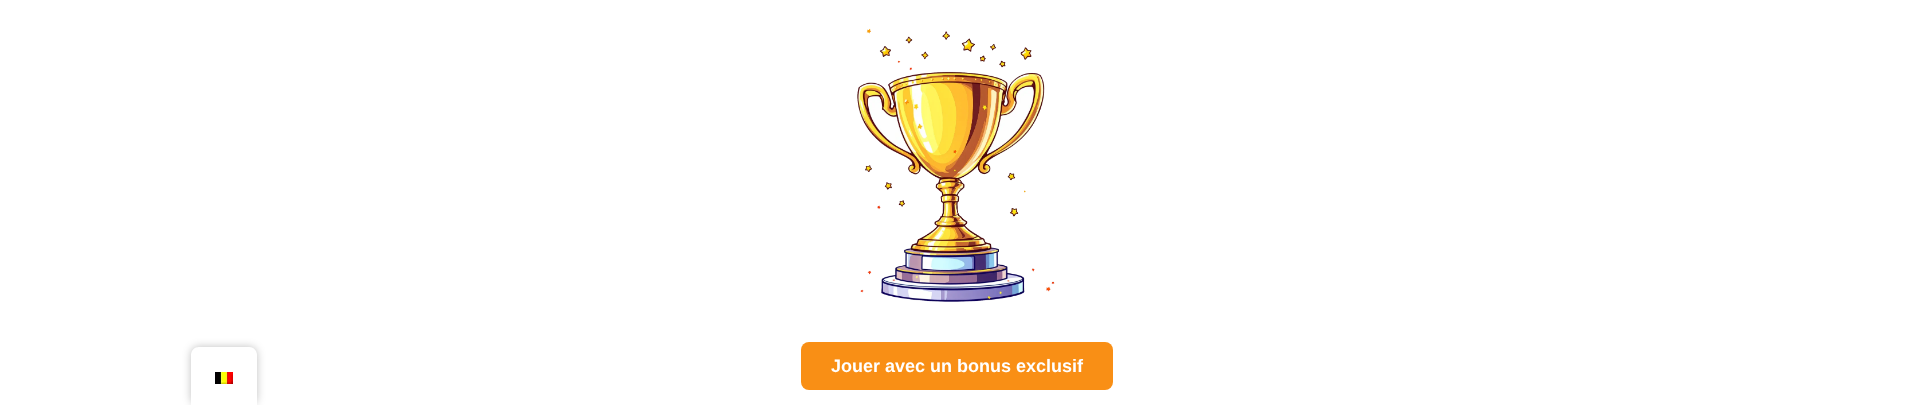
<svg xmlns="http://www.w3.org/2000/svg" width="1914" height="405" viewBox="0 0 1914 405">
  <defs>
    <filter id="blur1" x="-50%" y="-200%" width="200%" height="500%"><feGaussianBlur stdDeviation="4"/></filter>
  </defs>
  <rect width="100%" height="100%" fill="#ffffff"/>
  <rect x="191" y="347" width="66" height="58" rx="8" fill="#000000" fill-opacity="0.25" filter="url(#blur1)"/>
  <path d="M199 347H249C253.5 347 257 350.5 257 355V405H191V355C191 350.5 194.5 347 199 347Z" fill="#ffffff"/>
  <image x="215" y="372" width="18" height="12" href="img1.png"/>
  <image x="857" y="28" width="198" height="274" href="img2.png"/>
  <rect x="801" y="342" width="312" height="48" rx="8" fill="#f98f15"/>
  <text x="831" y="372" font-family="Liberation Sans" font-size="18" font-weight="bold" fill="#ffffff">Jouer avec un bonus exclusif</text>
</svg>
